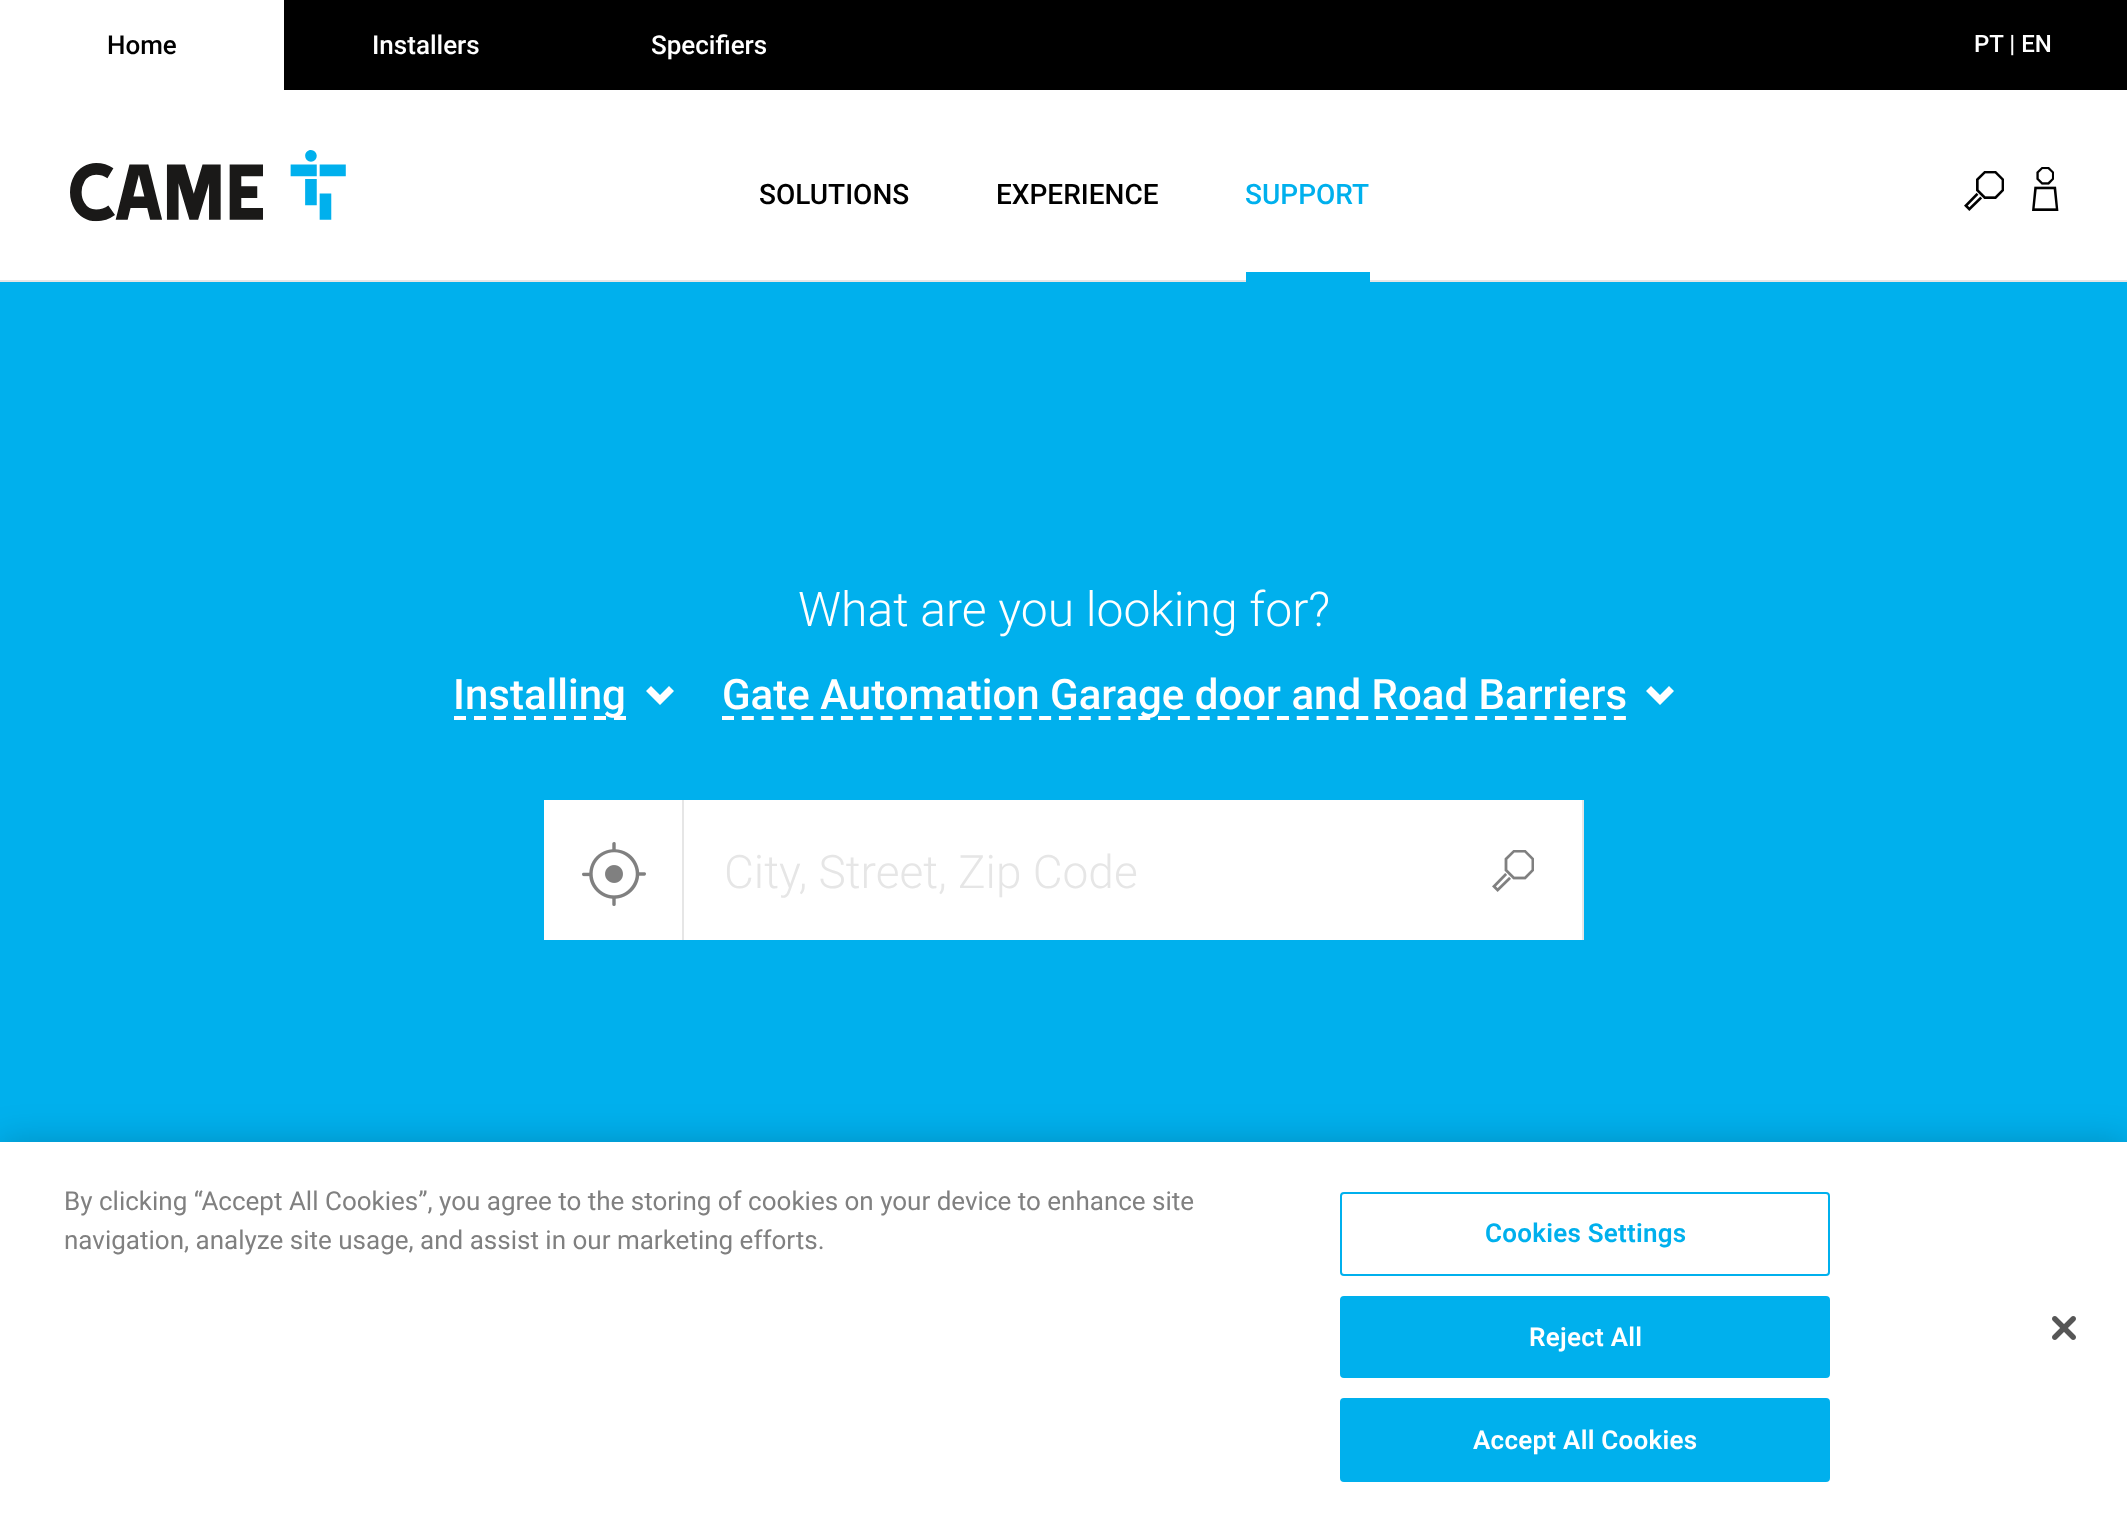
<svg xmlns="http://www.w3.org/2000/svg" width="2127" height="1522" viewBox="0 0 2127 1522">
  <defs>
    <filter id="blur1" x="-50%" y="-200%" width="200%" height="500%"><feGaussianBlur stdDeviation="18"/></filter>
  </defs>
  <rect width="100%" height="100%" fill="#ffffff"/>
  <rect x="284" y="0" width="1843" height="90" fill="#000000"/>
  <text x="107" y="54" font-family="Roboto" font-size="26" font-weight="500" fill="#000000">Home</text>
  <text x="372" y="54" font-family="Roboto" font-size="26" font-weight="500" fill="#ffffff">Installers</text>
  <text x="651" y="54" font-family="Roboto" font-size="26" font-weight="500" fill="#ffffff">Specifiers</text>
  <text x="1974" y="52" font-family="Roboto" font-size="24" font-weight="500" fill="#ffffff">PT | EN</text>
  <rect x="0" y="280" width="2127" height="2" fill="#e6e6e6"/>
  <image x="70" y="150" width="276" height="72" href="img1.png"/>
  <text x="759" y="204" font-family="Roboto" font-size="28" font-weight="500" fill="#000000">SOLUTIONS</text>
  <text x="996" y="204" font-family="Roboto" font-size="28" font-weight="500" fill="#000000">EXPERIENCE</text>
  <text x="1245" y="204" font-family="Roboto" font-size="28" font-weight="500" fill="#00b0ed">SUPPORT</text>
  <rect x="1246" y="272" width="124" height="10" fill="#00b0ed"/>
  <image x="1964" y="171" width="40" height="40" href="img2.png"/>
  <image x="2032" y="167" width="27" height="44" href="img3.png"/>
  <rect x="0" y="282" width="2127" height="860" fill="#00b0ed"/>
  <text x="798" y="626" font-family="Roboto" font-size="48" font-weight="300" fill="#ffffff">What are you looking for?</text>
  <text x="453" y="709" font-family="Roboto" font-size="42" font-weight="500" fill="#ffffff">Installing</text>
  <path d="M454 718H626" fill="none" stroke="#ffffff" stroke-width="4" stroke-dasharray="12 8"/>
  <path d="M674 691L660 705L646 691L651 686L660 695L669 686L674 691" fill="#ffffff" fill-rule="evenodd"/>
  <text x="722" y="709" font-family="Roboto" font-size="42" font-weight="500" fill="#ffffff">Gate Automation Garage door and Road Barriers</text>
  <path d="M722 718H1626" fill="none" stroke="#ffffff" stroke-width="4" stroke-dasharray="12 7.82"/>
  <path d="M1674 691L1660 705L1646 691L1651 686L1660 695L1669 686L1674 691" fill="#ffffff" fill-rule="evenodd"/>
  <rect x="544" y="800" width="138" height="140" fill="#ffffff"/>
  <rect x="682" y="800" width="2" height="140" fill="#e6e6e6"/>
  <image x="582" y="842" width="64" height="64" href="img4.png"/>
  <rect x="684" y="800" width="898" height="140" fill="#ffffff"/>
  <text x="724" y="888" font-family="Roboto" font-size="46" font-weight="300" fill="#e6e6e6">City, Street, Zip Code</text>
  <rect x="1582" y="800" width="2" height="140" fill="#e6e6e6"/>
  <image x="1492" y="850" width="42" height="42" href="img5.png"/>
  <rect x="0" y="1142" width="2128" height="380" fill="#000000" fill-opacity="0.2" filter="url(#blur1)"/>
  <rect x="0" y="1142" width="2127" height="380" fill="#ffffff"/>
  <text x="64" y="1210" font-family="Roboto" font-size="26" fill="#808080">By clicking “Accept All Cookies”, you agree to the storing of cookies on your device to enhance site</text>
  <text x="64" y="1249" font-family="Roboto" font-size="26" fill="#808080">navigation, analyze site usage, and assist in our marketing efforts.</text>
  <rect x="1341" y="1193" width="488" height="82" rx="3" fill="none" stroke="#00b0ed" stroke-width="2"/>
  <text x="1485" y="1242" font-family="Roboto" font-size="26" font-weight="600" letter-spacing="0.25" fill="#00b0ed">Cookies Settings</text>
  <rect x="1341" y="1297" width="488" height="80" rx="3" fill="#00b0ed" stroke="#00b0ed" stroke-width="2"/>
  <text x="1529" y="1346" font-family="Roboto" font-size="26" font-weight="600" letter-spacing="0.25" fill="#ffffff">Reject All</text>
  <rect x="1341" y="1399" width="488" height="82" rx="3" fill="#00b0ed" stroke="#00b0ed" stroke-width="2"/>
  <text x="1473" y="1449" font-family="Roboto" font-size="26" font-weight="600" letter-spacing="0.25" fill="#ffffff">Accept All Cookies</text>
  <image x="2052" y="1316" width="24" height="24" href="img6.png"/>
</svg>
